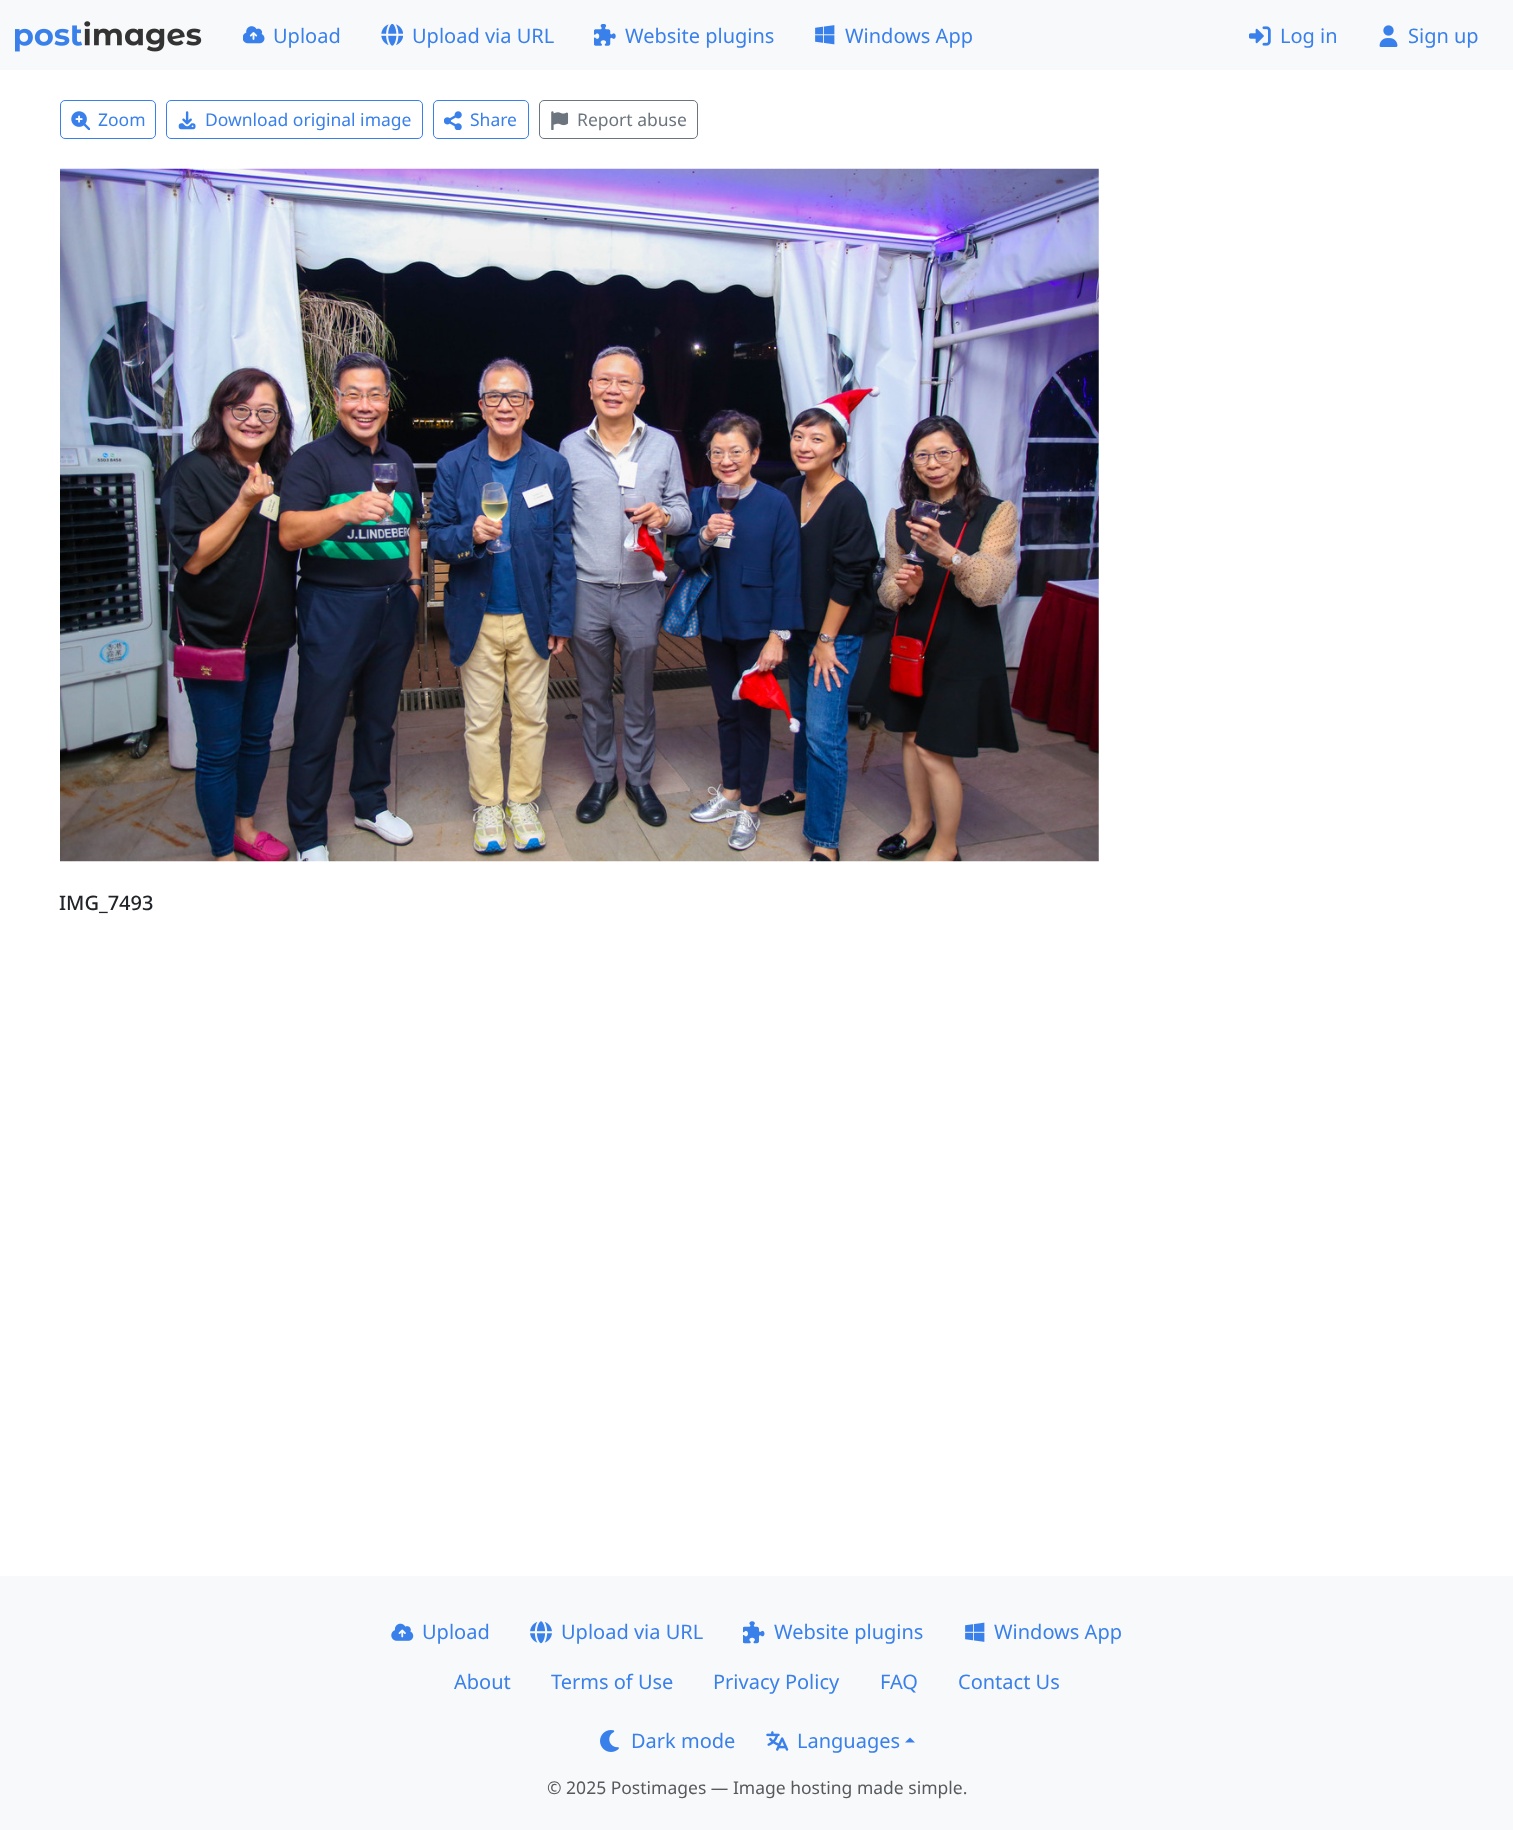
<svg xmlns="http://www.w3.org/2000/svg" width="1513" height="1830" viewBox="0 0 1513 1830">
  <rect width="100%" height="100%" fill="#ffffff"/>
  <rect x="0" y="0" width="1513" height="70" fill="#f8f9fa"/>
  <image x="15" y="21" width="187" height="31" href="img1.png"/>
  <image x="243" y="26" width="22" height="18" href="img2.png"/>
  <text x="273" y="43" font-family="Noto Sans" font-size="20" fill="#3a80ea">Upload</text>
  <image x="381" y="24" width="22" height="22" href="img3.png"/>
  <text x="412" y="43" font-family="Noto Sans" font-size="20" fill="#3a80ea">Upload via URL</text>
  <image x="594" y="24" width="22" height="22" href="img4.png"/>
  <text x="625" y="43" font-family="Noto Sans" font-size="20" fill="#3a80ea">Website plugins</text>
  <image x="815" y="25" width="20" height="20" href="img5.png"/>
  <text x="845" y="43" font-family="Noto Sans" font-size="20" fill="#3a80ea">Windows App</text>
  <image x="1249" y="26" width="22" height="20" href="img6.png"/>
  <text x="1280" y="43" font-family="Noto Sans" font-size="20" fill="#3a80ea">Log in</text>
  <image x="1379" y="25" width="19" height="22" href="img7.png"/>
  <text x="1408" y="43" font-family="Noto Sans" font-size="20" fill="#3a80ea">Sign up</text>
  <rect x="60.5" y="100.5" width="95" height="38" rx="4.5" fill="none" stroke="#3a80ea"/>
  <image x="71" y="111" width="19" height="19" href="img8.png"/>
  <text x="98" y="126" font-family="Noto Sans" font-size="17.5" fill="#3a80ea">Zoom</text>
  <rect x="166.5" y="100.5" width="256" height="38" rx="4.5" fill="none" stroke="#3a80ea"/>
  <image x="178" y="111" width="18" height="19" href="img9.png"/>
  <text x="205" y="126" font-family="Noto Sans" font-size="17.5" fill="#3a80ea">Download original image</text>
  <rect x="433.5" y="100.5" width="95" height="38" rx="4.5" fill="none" stroke="#3a80ea"/>
  <image x="444" y="111" width="18" height="19" href="img10.png"/>
  <text x="470" y="126" font-family="Noto Sans" font-size="17.5" fill="#3a80ea">Share</text>
  <rect x="539.5" y="100.5" width="158" height="38" rx="4.5" fill="none" stroke="#6c757d"/>
  <image x="551" y="111" width="18" height="19" href="img11.png"/>
  <text x="577" y="126" font-family="Noto Sans" font-size="17.5" fill="#6c757d">Report abuse</text>
  <image x="60" y="168" width="1039" height="694" href="img12.png"/>
  <text x="59" y="910" font-family="Noto Sans" font-size="20" font-weight="500" fill="#212529">IMG_7493</text>
  <rect x="0" y="1576" width="1513" height="254" fill="#f8f9fa"/>
  <image x="391" y="1623" width="23" height="18" href="img13.png"/>
  <text x="422" y="1639" font-family="Noto Sans" font-size="20" fill="#3a80ea">Upload</text>
  <image x="530" y="1621" width="22" height="23" href="img14.png"/>
  <text x="561" y="1639" font-family="Noto Sans" font-size="20" fill="#3a80ea">Upload via URL</text>
  <image x="743" y="1621" width="22" height="23" href="img15.png"/>
  <text x="774" y="1639" font-family="Noto Sans" font-size="20" fill="#3a80ea">Website plugins</text>
  <image x="965" y="1622" width="20" height="20" href="img16.png"/>
  <text x="994" y="1639" font-family="Noto Sans" font-size="20" fill="#3a80ea">Windows App</text>
  <text x="454" y="1689" font-family="Noto Sans" font-size="20" fill="#3a80ea">About</text>
  <text x="551" y="1689" font-family="Noto Sans" font-size="20" fill="#3a80ea">Terms of Use</text>
  <text x="713" y="1689" font-family="Noto Sans" font-size="20" fill="#3a80ea">Privacy Policy</text>
  <text x="880" y="1689" font-family="Noto Sans" font-size="20" fill="#3a80ea">FAQ</text>
  <text x="958" y="1689" font-family="Noto Sans" font-size="20" fill="#3a80ea">Contact Us</text>
  <image x="600" y="1730" width="19" height="22" href="img17.png"/>
  <text x="631" y="1748" font-family="Noto Sans" font-size="20" fill="#3a80ea">Dark mode</text>
  <image x="766" y="1731" width="23" height="20" href="img18.png"/>
  <text x="797" y="1748" font-family="Noto Sans" font-size="20" fill="#3a80ea">Languages</text>
  <path d="M915 1742.5H905L910 1737.5Z" fill="#3a80ea"/>
  <text x="547" y="1794" font-family="Noto Sans" font-size="17.5" fill="#575a5d">© 2025 Postimages — Image hosting made simple.</text>
</svg>
